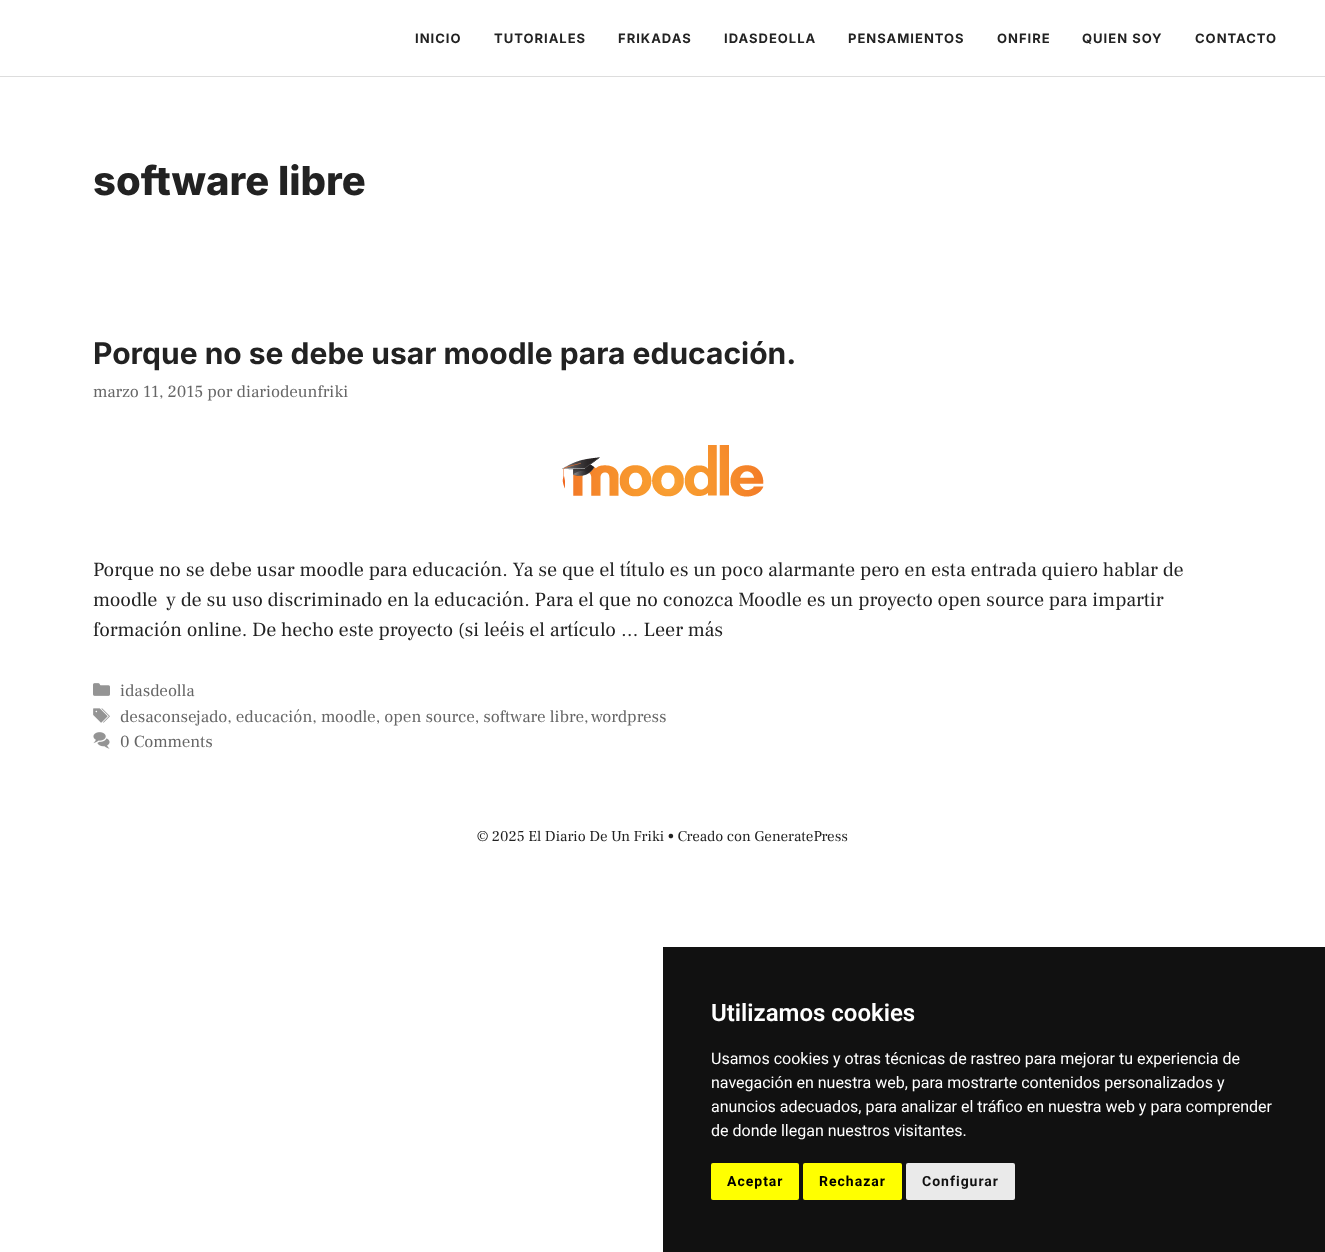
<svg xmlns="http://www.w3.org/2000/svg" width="1325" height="1252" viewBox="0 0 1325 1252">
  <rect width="100%" height="100%" fill="#ffffff"/>
  <rect x="0" y="76" width="1325" height="1" fill="#dddddd"/>
  <text x="415" y="43" font-family="Inter" font-size="13" font-weight="bold" letter-spacing="1" fill="#222222">INICIO</text>
  <text x="494" y="43" font-family="Inter" font-size="13" font-weight="bold" letter-spacing="1" fill="#222222">TUTORIALES</text>
  <text x="618" y="43" font-family="Inter" font-size="13" font-weight="bold" letter-spacing="1" fill="#222222">FRIKADAS</text>
  <text x="724" y="43" font-family="Inter" font-size="13" font-weight="bold" letter-spacing="1" fill="#222222">IDASDEOLLA</text>
  <text x="848" y="43" font-family="Inter" font-size="13" font-weight="bold" letter-spacing="1" fill="#222222">PENSAMIENTOS</text>
  <text x="997" y="43" font-family="Inter" font-size="13" font-weight="bold" letter-spacing="1" fill="#222222">ONFIRE</text>
  <text x="1082" y="43" font-family="Inter" font-size="13" font-weight="bold" letter-spacing="1" fill="#222222">QUIEN SOY</text>
  <text x="1195" y="43" font-family="Inter" font-size="13" font-weight="bold" letter-spacing="1" fill="#222222">CONTACTO</text>
  <text x="93" y="195" font-family="Inter" font-size="40" font-weight="800" fill="#222222">software libre</text>
  <text x="93" y="364" font-family="Inter" font-size="30" font-weight="bold" fill="#222222">Porque no se debe usar moodle para educación.</text>
  <text x="93" y="397" font-family="Frank Ruhl Libre" font-size="17" fill="#666666">marzo 11, 2015 por diariodeunfriki</text>
  <image x="562" y="445" width="202" height="52" href="img1.png"/>
  <text x="93" y="576" font-family="Frank Ruhl Libre" font-size="20" fill="#222222">Porque no se debe usar moodle para educación. Ya se que el título es un poco alarmante pero en esta entrada quiero hablar de</text>
  <text x="93" y="606" font-family="Frank Ruhl Libre" font-size="20" fill="#222222" xml:space="preserve">moodle  y de su uso discriminado en la educación. Para el que no conozca Moodle es un proyecto open source para impartir</text>
  <text x="93" y="636" font-family="Frank Ruhl Libre" font-size="20" fill="#222222">formación online. De hecho este proyecto (si leéis el artículo … Leer más</text>
  <image x="93" y="683" width="17" height="13" href="img2.png"/>
  <text x="120" y="696" font-family="Frank Ruhl Libre" font-size="17" fill="#666666">idasdeolla</text>
  <image x="93" y="708" width="17" height="15" href="img3.png"/>
  <text x="120" y="722" font-family="Frank Ruhl Libre" font-size="17" fill="#666666">desaconsejado, educación, moodle, open source, software libre,</text>
  <text x="591" y="722" font-family="Frank Ruhl Libre" font-size="17" fill="#666666">wordpress</text>
  <image x="93" y="732" width="17" height="17" href="img4.png"/>
  <text x="120" y="747" font-family="Frank Ruhl Libre" font-size="17" fill="#666666">0 Comments</text>
  <text x="477" y="841" font-family="Frank Ruhl Libre" font-size="15" fill="#222222">© 2025 El Diario De Un Friki • Creado con GeneratePress</text>
  <rect x="663" y="947" width="662" height="305" fill="#111111"/>
  <text x="711" y="1021" font-family="Roboto" font-size="24" font-weight="600" fill="#ffffff">Utilizamos cookies</text>
  <text x="711" y="1064" font-family="Roboto" font-size="16" fill="#ffffff">Usamos cookies y otras técnicas de rastreo para mejorar tu experiencia de</text>
  <text x="711" y="1088" font-family="Roboto" font-size="16" fill="#ffffff">navegación en nuestra web, para mostrarte contenidos personalizados y</text>
  <text x="711" y="1112" font-family="Roboto" font-size="16" fill="#ffffff">anuncios adecuados, para analizar el tráfico en nuestra web y para comprender</text>
  <text x="711" y="1136" font-family="Roboto" font-size="16" fill="#ffffff">de donde llegan nuestros visitantes.</text>
  <rect x="711" y="1163" width="88" height="37" rx="2" fill="#ffff00"/>
  <text x="727" y="1186" font-family="Roboto" font-size="14" font-weight="bold" letter-spacing="1" fill="#000000">Aceptar</text>
  <rect x="803" y="1163" width="99" height="37" rx="2" fill="#ffff00"/>
  <text x="819" y="1186" font-family="Roboto" font-size="14" font-weight="bold" letter-spacing="1" fill="#000000">Rechazar</text>
  <rect x="906" y="1163" width="109" height="37" rx="2" fill="#eaeaea"/>
  <text x="922" y="1186" font-family="Roboto" font-size="14" font-weight="bold" letter-spacing="1" fill="#111111">Configurar</text>
</svg>
